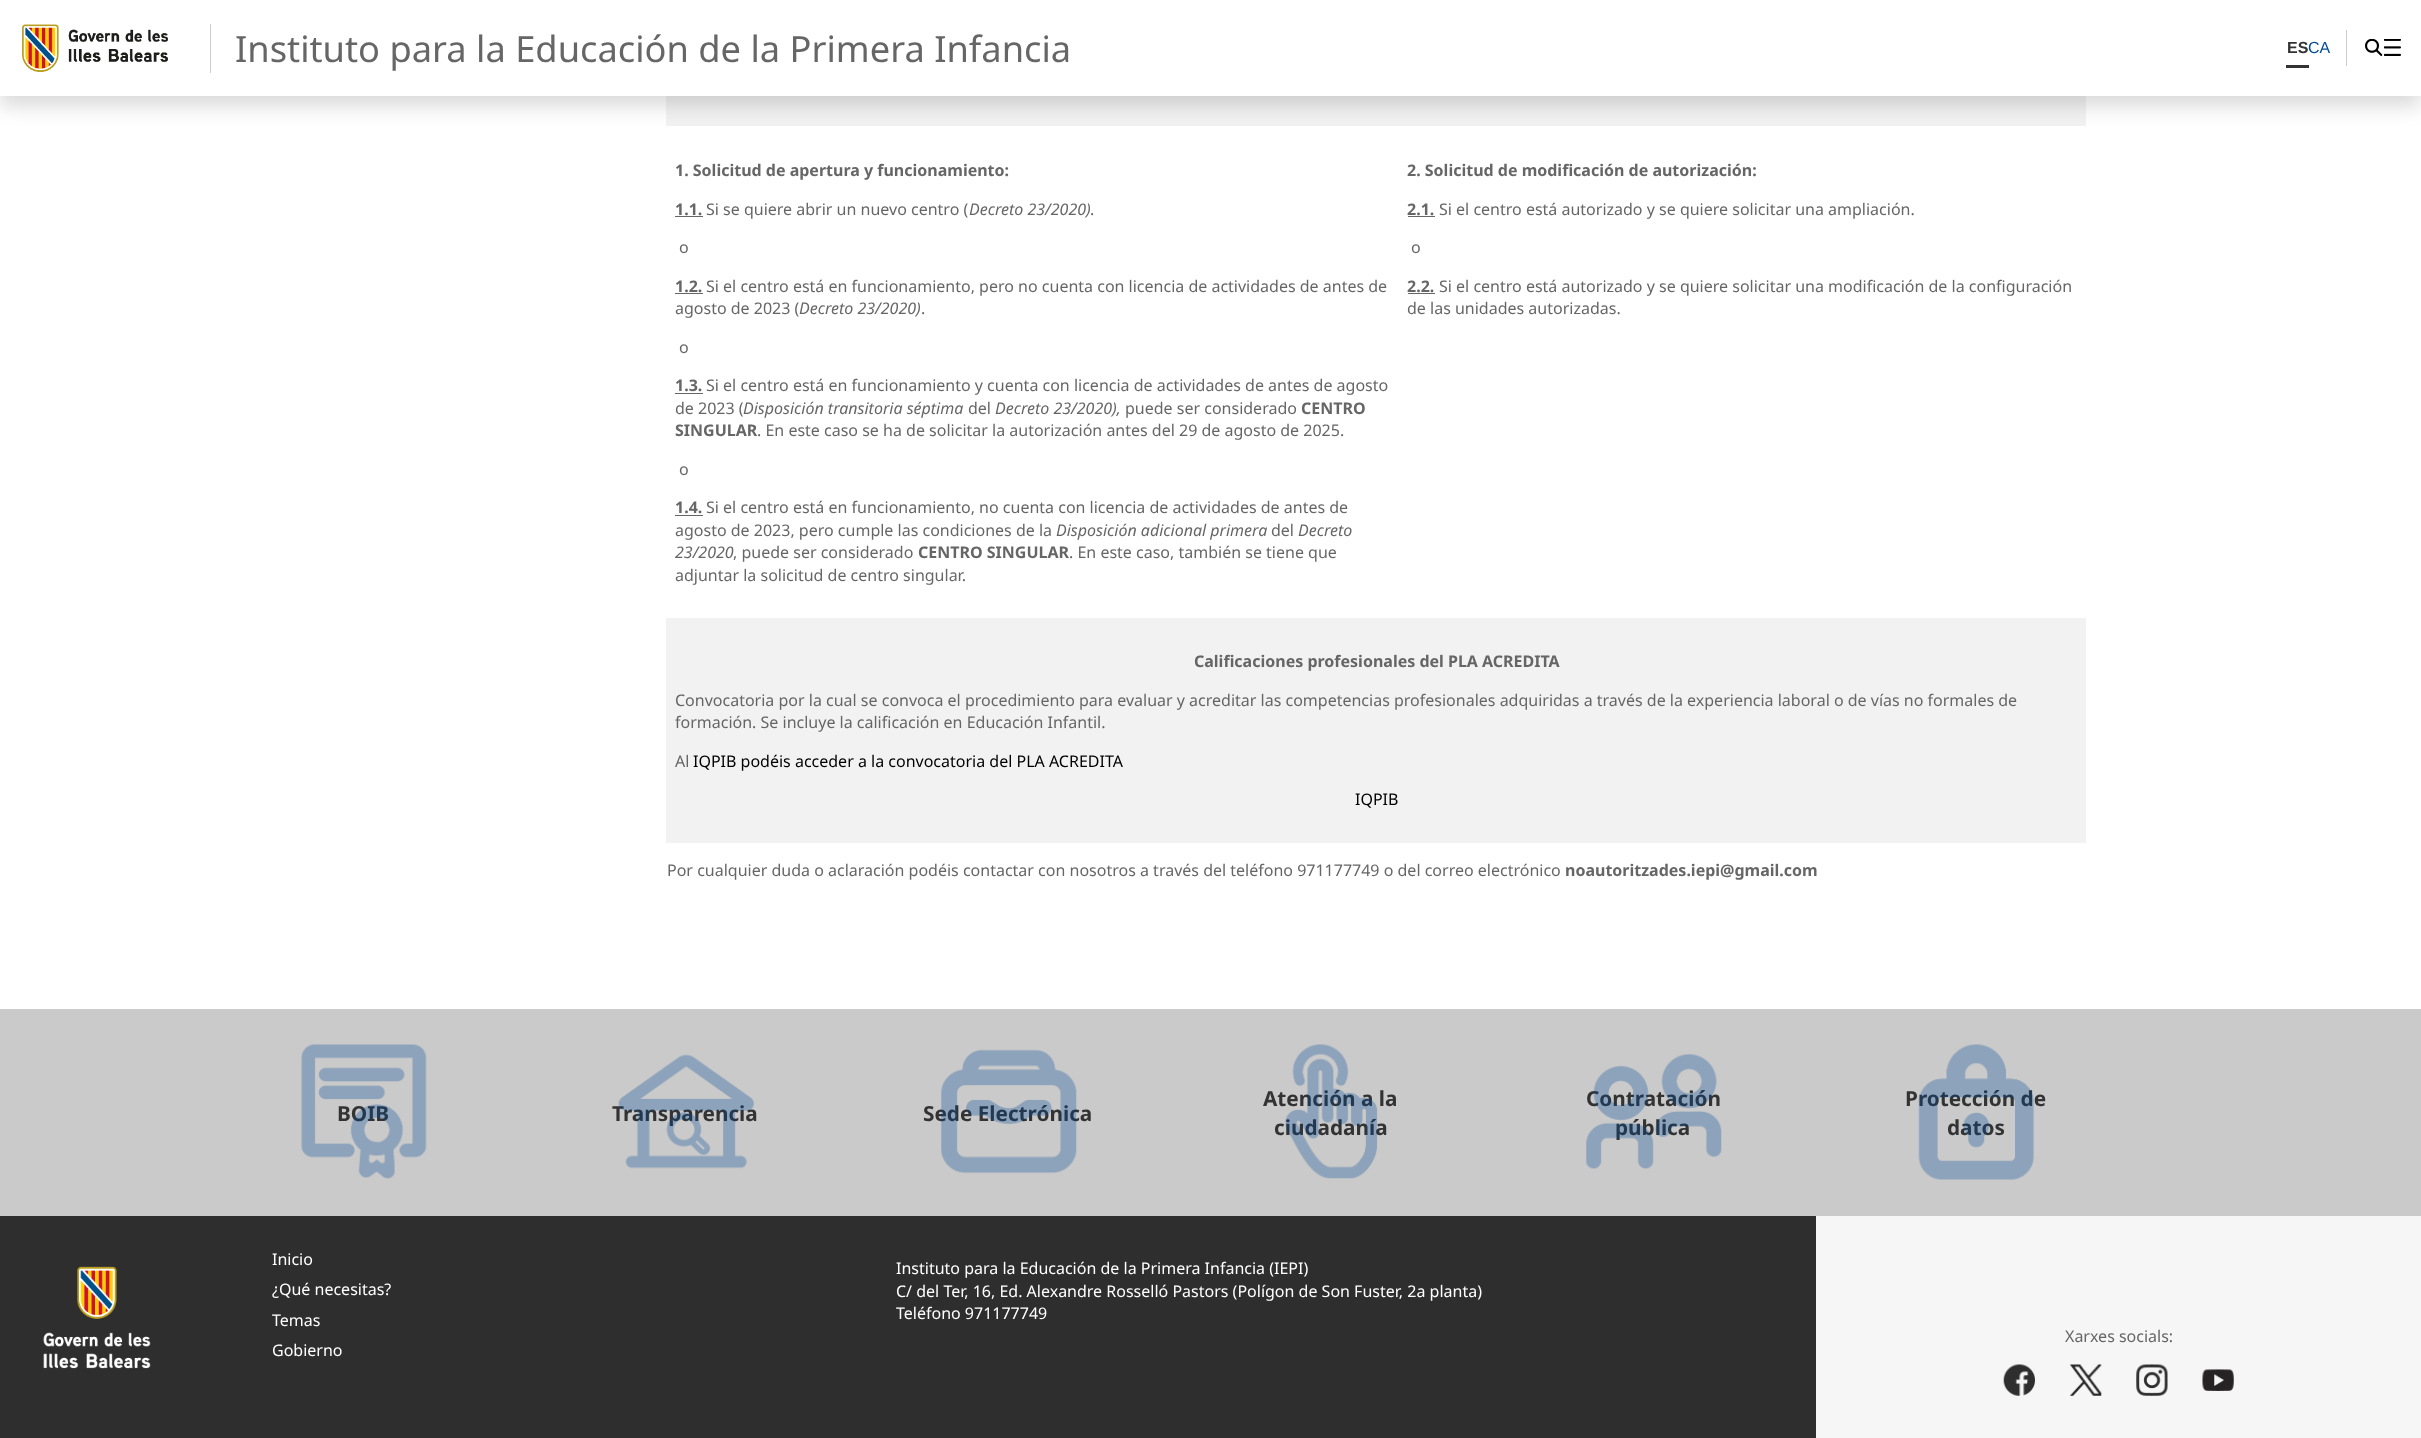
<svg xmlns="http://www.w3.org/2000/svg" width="2421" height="1438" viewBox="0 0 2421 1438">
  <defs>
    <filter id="blur1" x="-50%" y="-200%" width="200%" height="500%"><feGaussianBlur stdDeviation="10"/></filter>
  </defs>
  <rect width="100%" height="100%" fill="#ffffff"/>
  <rect x="666" y="96" width="1420" height="30" fill="#f2f2f2"/>
  <rect x="0" y="10" width="2421" height="96" fill="#000000" fill-opacity="0.15" filter="url(#blur1)"/>
  <rect x="0" y="0" width="2421" height="96" fill="#ffffff"/>
  <rect x="210" y="24" width="1" height="49" fill="#cccccc"/>
  <image x="22" y="24" width="146" height="48" href="img1.png"/>
  <text x="235" y="62" font-family="Noto Sans" font-size="36.25" fill="#666666">Instituto para la Educación de la Primera Infancia</text>
  <rect x="2346" y="30" width="1" height="36" fill="#cccccc"/>
  <rect x="2286" y="65" width="23" height="3" fill="#333333"/>
  <text x="2287" y="53" font-family="Liberation Sans" font-size="16" font-weight="bold" fill="#333333">ES</text>
  <text x="2308" y="53" font-family="Liberation Sans" font-size="16" fill="#004b99">CA</text>
  <image x="2365" y="39" width="18" height="17" href="img2.png"/>
  <image x="2384" y="39" width="17" height="17" href="img3.png"/>
  <text x="675" y="176" font-family="Noto Sans" font-size="16" font-weight="bold" fill="#666666">1. Solicitud de apertura y funcionamiento:</text>
  <text x="675" y="215" font-family="Noto Sans" font-size="16" font-weight="bold" fill="#666666">1.1.</text>
  <rect x="675" y="216" width="28" height="1" fill="#666666"/>
  <text x="706" y="215" font-family="Noto Sans" font-size="16" fill="#666666">Si se quiere abrir un nuevo centro (</text>
  <text x="969" y="215" font-family="Noto Sans" font-size="16" font-style="italic" fill="#666666">Decreto 23/2020)</text>
  <text x="1090" y="215" font-family="Noto Sans" font-size="16" fill="#666666">.</text>
  <text x="679" y="253" font-family="Noto Sans" font-size="16" fill="#666666">o</text>
  <text x="675" y="292" font-family="Noto Sans" font-size="16" font-weight="bold" fill="#666666">1.2.</text>
  <rect x="675" y="293" width="28" height="1" fill="#666666"/>
  <text x="706" y="292" font-family="Noto Sans" font-size="16" fill="#666666">Si el centro está en funcionamiento, pero no cuenta con licencia de actividades de antes de</text>
  <text x="675" y="314" font-family="Noto Sans" font-size="16" fill="#666666">agosto de 2023 (</text>
  <text x="799" y="314" font-family="Noto Sans" font-size="16" font-style="italic" fill="#666666">Decreto 23/2020)</text>
  <text x="921" y="314" font-family="Noto Sans" font-size="16" fill="#666666">.</text>
  <text x="679" y="353" font-family="Noto Sans" font-size="16" fill="#666666">o</text>
  <text x="675" y="391" font-family="Noto Sans" font-size="16" font-weight="bold" fill="#666666">1.3.</text>
  <rect x="675" y="393" width="28" height="1" fill="#666666"/>
  <text x="706" y="391" font-family="Noto Sans" font-size="16" fill="#666666">Si el centro está en funcionamiento y cuenta con licencia de actividades de antes de agosto</text>
  <text x="675" y="414" font-family="Noto Sans" font-size="16" fill="#666666">de 2023 (</text>
  <text x="743" y="414" font-family="Noto Sans" font-size="16" font-style="italic" fill="#666666">Disposición transitoria séptima</text>
  <text x="968" y="414" font-family="Noto Sans" font-size="16" fill="#666666">del</text>
  <text x="995" y="414" font-family="Noto Sans" font-size="16" font-style="italic" fill="#666666">Decreto 23/2020),</text>
  <text x="1125" y="414" font-family="Noto Sans" font-size="16" fill="#666666">puede ser considerado</text>
  <text x="1301" y="414" font-family="Noto Sans" font-size="16" font-weight="bold" fill="#666666">CENTRO</text>
  <text x="675" y="436" font-family="Noto Sans" font-size="16" font-weight="bold" fill="#666666">SINGULAR</text>
  <text x="757" y="436" font-family="Noto Sans" font-size="16" fill="#666666">. En este caso se ha de solicitar la autorización antes del 29 de agosto de 2025.</text>
  <text x="679" y="475" font-family="Noto Sans" font-size="16" fill="#666666">o</text>
  <text x="675" y="513" font-family="Noto Sans" font-size="16" font-weight="bold" fill="#666666">1.4.</text>
  <rect x="675" y="515" width="28" height="1" fill="#666666"/>
  <text x="706" y="513" font-family="Noto Sans" font-size="16" fill="#666666">Si el centro está en funcionamiento, no cuenta con licencia de actividades de antes de</text>
  <text x="675" y="536" font-family="Noto Sans" font-size="16" fill="#666666">agosto de 2023, pero cumple las condiciones de la</text>
  <text x="1056" y="536" font-family="Noto Sans" font-size="16" font-style="italic" fill="#666666">Disposición adicional primera</text>
  <text x="1271" y="536" font-family="Noto Sans" font-size="16" fill="#666666">del</text>
  <text x="1298" y="536" font-family="Noto Sans" font-size="16" font-style="italic" fill="#666666">Decreto</text>
  <text x="675" y="558" font-family="Noto Sans" font-size="16" font-style="italic" fill="#666666">23/2020</text>
  <text x="733" y="558" font-family="Noto Sans" font-size="16" fill="#666666">, puede ser considerado</text>
  <text x="918" y="558" font-family="Noto Sans" font-size="16" font-weight="bold" fill="#666666">CENTRO SINGULAR</text>
  <text x="1069" y="558" font-family="Noto Sans" font-size="16" fill="#666666">. En este caso, también se tiene que</text>
  <text x="675" y="581" font-family="Noto Sans" font-size="16" fill="#666666">adjuntar la solicitud de centro singular.</text>
  <text x="1407" y="176" font-family="Noto Sans" font-size="16" font-weight="bold" fill="#666666">2. Solicitud de modificación de autorización:</text>
  <text x="1407" y="215" font-family="Noto Sans" font-size="16" font-weight="bold" fill="#666666">2.1.</text>
  <rect x="1408" y="216" width="27" height="1" fill="#666666"/>
  <text x="1439" y="215" font-family="Noto Sans" font-size="16" fill="#666666">Si el centro está autorizado y se quiere solicitar una ampliación.</text>
  <text x="1411" y="253" font-family="Noto Sans" font-size="16" fill="#666666">o</text>
  <text x="1407" y="292" font-family="Noto Sans" font-size="16" font-weight="bold" fill="#666666">2.2.</text>
  <rect x="1408" y="293" width="27" height="1" fill="#666666"/>
  <text x="1439" y="292" font-family="Noto Sans" font-size="16" fill="#666666">Si el centro está autorizado y se quiere solicitar una modificación de la configuración</text>
  <text x="1407" y="314" font-family="Noto Sans" font-size="16" fill="#666666">de las unidades autorizadas.</text>
  <rect x="666" y="618" width="1420" height="225" fill="#f2f2f2"/>
  <text x="1194" y="667" font-family="Noto Sans" font-size="16" font-weight="bold" fill="#666666">Calificaciones profesionales del PLA ACREDITA</text>
  <text x="675" y="706" font-family="Noto Sans" font-size="16" fill="#666666">Convocatoria por la cual se convoca el procedimiento para evaluar y acreditar las competencias profesionales adquiridas a través de la experiencia laboral o de vías no formales de</text>
  <text x="675" y="728" font-family="Noto Sans" font-size="16" fill="#666666">formación. Se incluye la calificación en Educación Infantil.</text>
  <text x="675" y="767" font-family="Noto Sans" font-size="16" fill="#666666">Al</text>
  <text x="693" y="767" font-family="Noto Sans" font-size="16" fill="#000000">IQPIB podéis acceder a la convocatoria del PLA ACREDITA</text>
  <text x="1355" y="805" font-family="Noto Sans" font-size="16" fill="#000000">IQPIB</text>
  <text x="667" y="876" font-family="Noto Sans" font-size="16" fill="#666666">Por cualquier duda o aclaración podéis contactar con nosotros a través del teléfono 971177749 o del correo electrónico</text>
  <text x="1565" y="876" font-family="Noto Sans" font-size="16" font-weight="bold" fill="#666666">noautoritzades.iepi@gmail.com</text>
  <rect x="0" y="1009" width="2421" height="207" fill="#cacaca"/>
  <text x="337" y="1121" font-family="Noto Sans" font-size="20.75" font-weight="bold" fill="#333333">BOIB</text>
  <image x="301" y="1044" width="126" height="135" href="img4.png"/>
  <text x="612" y="1121" font-family="Noto Sans" font-size="20.75" font-weight="bold" fill="#333333">Transparencia</text>
  <image x="618" y="1054" width="136" height="115" href="img5.png"/>
  <text x="923" y="1121" font-family="Noto Sans" font-size="20.75" font-weight="bold" fill="#333333">Sede Electrónica</text>
  <image x="941" y="1049" width="136" height="125" href="img6.png"/>
  <text x="1263" y="1106" font-family="Noto Sans" font-size="20.75" font-weight="bold" fill="#333333">Atención a la</text>
  <text x="1274" y="1135" font-family="Noto Sans" font-size="20.75" font-weight="bold" fill="#333333">ciudadanía</text>
  <image x="1285" y="1044" width="93" height="135" href="img7.png"/>
  <text x="1586" y="1106" font-family="Noto Sans" font-size="20.75" font-weight="bold" fill="#333333">Contratación</text>
  <text x="1615" y="1135" font-family="Noto Sans" font-size="20.75" font-weight="bold" fill="#333333">pública</text>
  <image x="1586" y="1054" width="136" height="115" href="img8.png"/>
  <text x="1905" y="1106" font-family="Noto Sans" font-size="20.75" font-weight="bold" fill="#333333">Protección de</text>
  <text x="1947" y="1135" font-family="Noto Sans" font-size="20.75" font-weight="bold" fill="#333333">datos</text>
  <image x="1918" y="1044" width="116" height="136" href="img9.png"/>
  <rect x="0" y="1216" width="1816" height="222" fill="#2e2e2e"/>
  <image x="43" y="1266" width="108" height="103" href="img10.png"/>
  <text x="272" y="1265" font-family="Noto Sans" font-size="16" fill="#ffffff">Inicio</text>
  <text x="272" y="1295" font-family="Noto Sans" font-size="16" fill="#ffffff">¿Qué necesitas?</text>
  <text x="272" y="1326" font-family="Noto Sans" font-size="16" fill="#ffffff">Temas</text>
  <text x="272" y="1356" font-family="Noto Sans" font-size="16" fill="#ffffff">Gobierno</text>
  <text x="896" y="1274" font-family="Noto Sans" font-size="16" fill="#ffffff">Instituto para la Educación de la Primera Infancia (IEPI)</text>
  <text x="896" y="1297" font-family="Noto Sans" font-size="16" fill="#ffffff">C/ del Ter, 16, Ed. Alexandre Rosselló Pastors (Polígon de Son Fuster, 2a planta)</text>
  <text x="896" y="1319" font-family="Noto Sans" font-size="16" fill="#ffffff">Teléfono 971177749</text>
  <rect x="1816" y="1216" width="605" height="222" fill="#f6f6f6"/>
  <text x="2065" y="1342" font-family="Noto Sans" font-size="16" fill="#666666">Xarxes socials:</text>
  <image x="2003" y="1364" width="32" height="32" href="img11.png"/>
  <image x="2070" y="1364" width="32" height="32" href="img12.png"/>
  <image x="2136" y="1364" width="32" height="32" href="img13.png"/>
  <image x="2202" y="1369" width="32" height="22" href="img14.png"/>
</svg>
